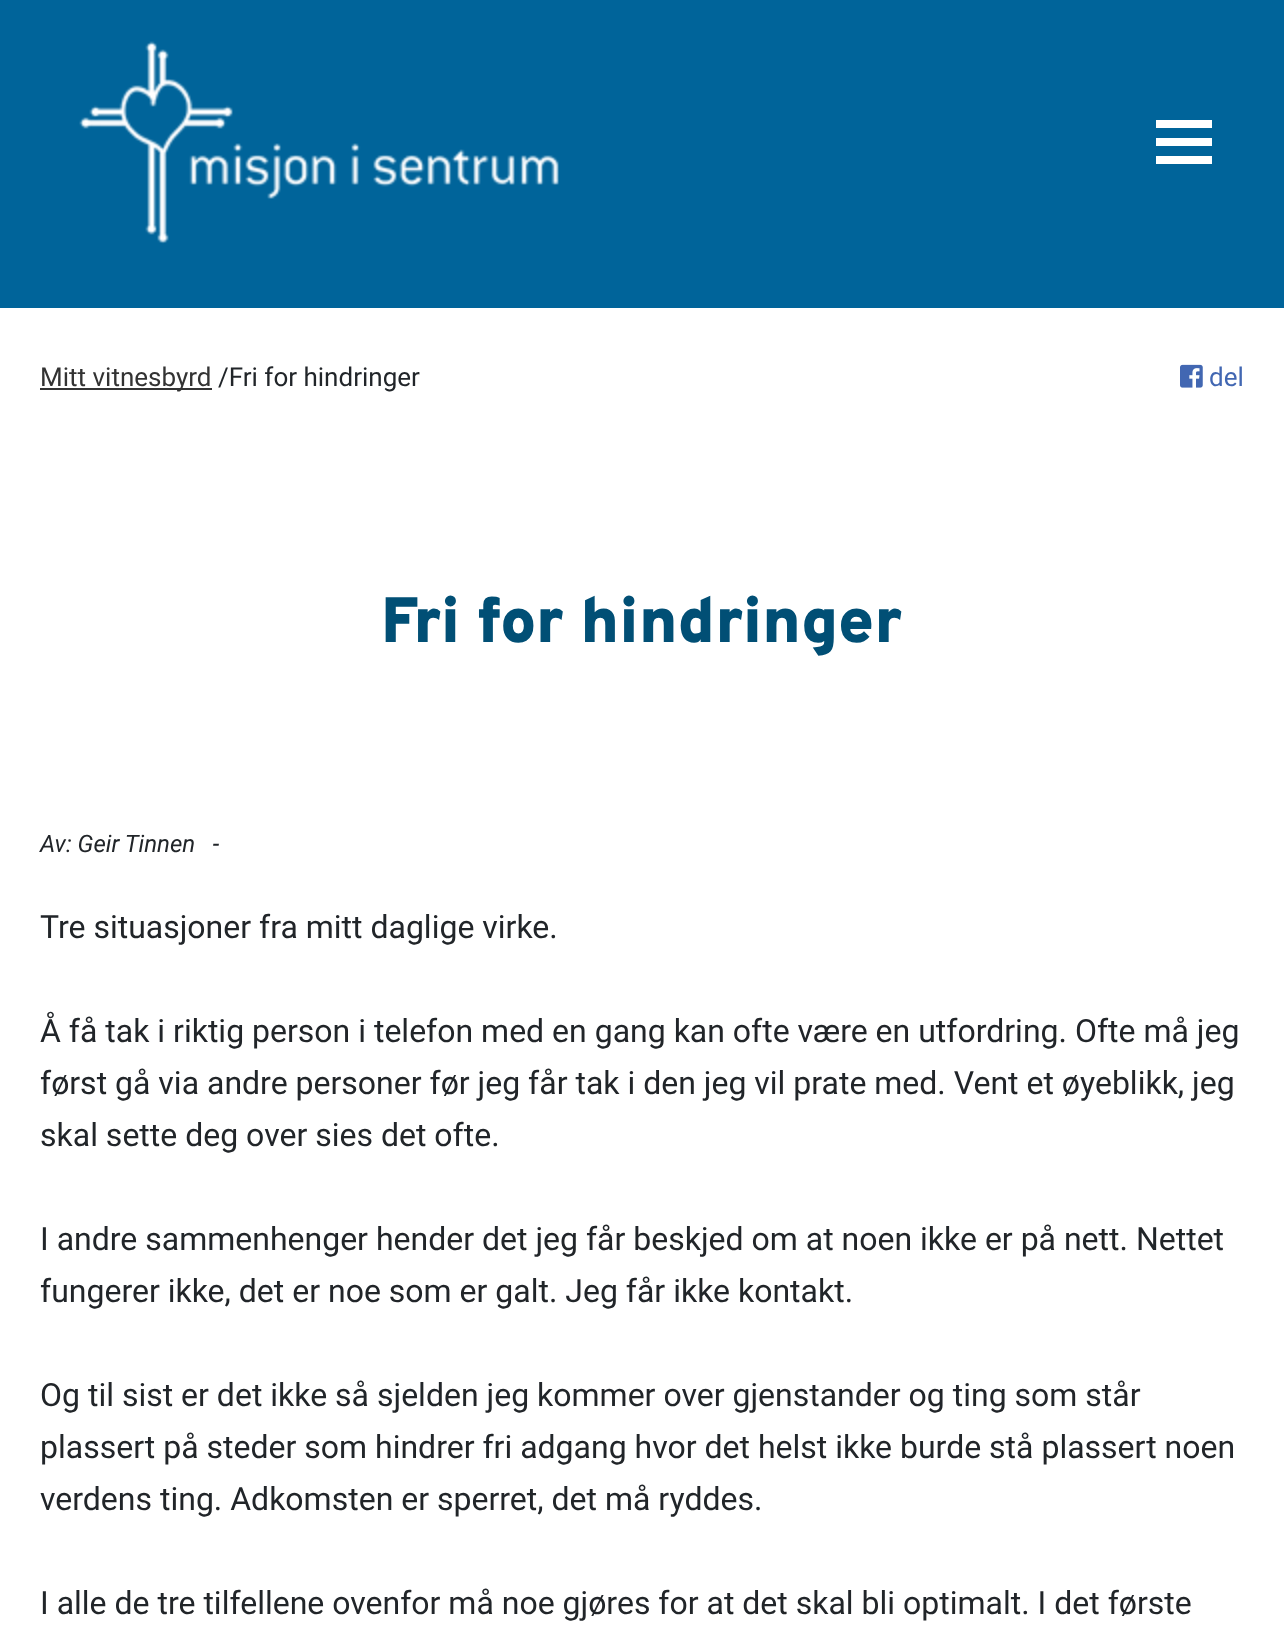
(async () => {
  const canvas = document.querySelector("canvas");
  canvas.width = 1284;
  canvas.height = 1636;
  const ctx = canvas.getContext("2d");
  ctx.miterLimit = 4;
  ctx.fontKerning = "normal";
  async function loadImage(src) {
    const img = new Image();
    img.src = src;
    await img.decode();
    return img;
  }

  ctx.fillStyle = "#ffffff";
  ctx.fillRect(0, 0, 1284, 1636);
  ctx.fillStyle = "#00649a";
  ctx.fillRect(0, 0, 1284, 308);
  ctx.drawImage(await loadImage("img/1.png"), 79, 41, 480, 203);
  for (const [x, y, w, h, color] of [
    [1156, 120, 56, 8, "#ffffff"],
    [1156, 138, 56, 8, "#ffffff"],
    [1156, 156, 56, 8, "#ffffff"],
    [40, 388, 172, 2, "#333333"],
  ]) {
    ctx.fillStyle = color;
    ctx.fillRect(x, y, w, h);
  }
  ctx.drawImage(await loadImage("img/2.png"), 1180, 364, 23, 24);
  ctx.font = "26px Roboto";
  ctx.fillText("Mitt vitnesbyrd", 40, 386);
  ctx.fillStyle = "#212529";
  ctx.fillText("/Fri for hindringer", 218, 386);
  ctx.fillStyle = "#4267b2";
  ctx.fillText("del", 1209, 386);
  ctx.font = "900 64px Overpass";
  ctx.fillStyle = "#014f75";
  ctx.fillText("Fri for hindringer", 381, 642);
  ctx.font = "italic 24px Roboto";
  ctx.fillStyle = "#212529";
  ctx.fillText("Av: Geir Tinnen   -", 40, 852);
  ctx.font = "32px Roboto";
  for (const [text, x, y] of [
    ["Tre situasjoner fra mitt daglige virke.", 40, 938],
    ["Å få tak i riktig person i telefon med en gang kan ofte være en utfordring. Ofte må jeg", 40, 1042],
    ["først gå via andre personer før jeg får tak i den jeg vil prate med. Vent et øyeblikk, jeg", 40, 1094],
    ["skal sette deg over sies det ofte.", 40, 1146],
    ["I andre sammenhenger hender det jeg får beskjed om at noen ikke er på nett. Nettet", 40, 1250],
    ["fungerer ikke, det er noe som er galt. Jeg får ikke kontakt.", 40, 1302],
    ["Og til sist er det ikke så sjelden jeg kommer over gjenstander og ting som står", 40, 1406],
    ["plassert på steder som hindrer fri adgang hvor det helst ikke burde stå plassert noen", 40, 1458],
    ["verdens ting. Adkomsten er sperret, det må ryddes.", 40, 1510],
    ["I alle de tre tilfellene ovenfor må noe gjøres for at det skal bli optimalt. I det første", 40, 1614],
  ]) {
    ctx.fillText(text, x, y);
  }
})();
